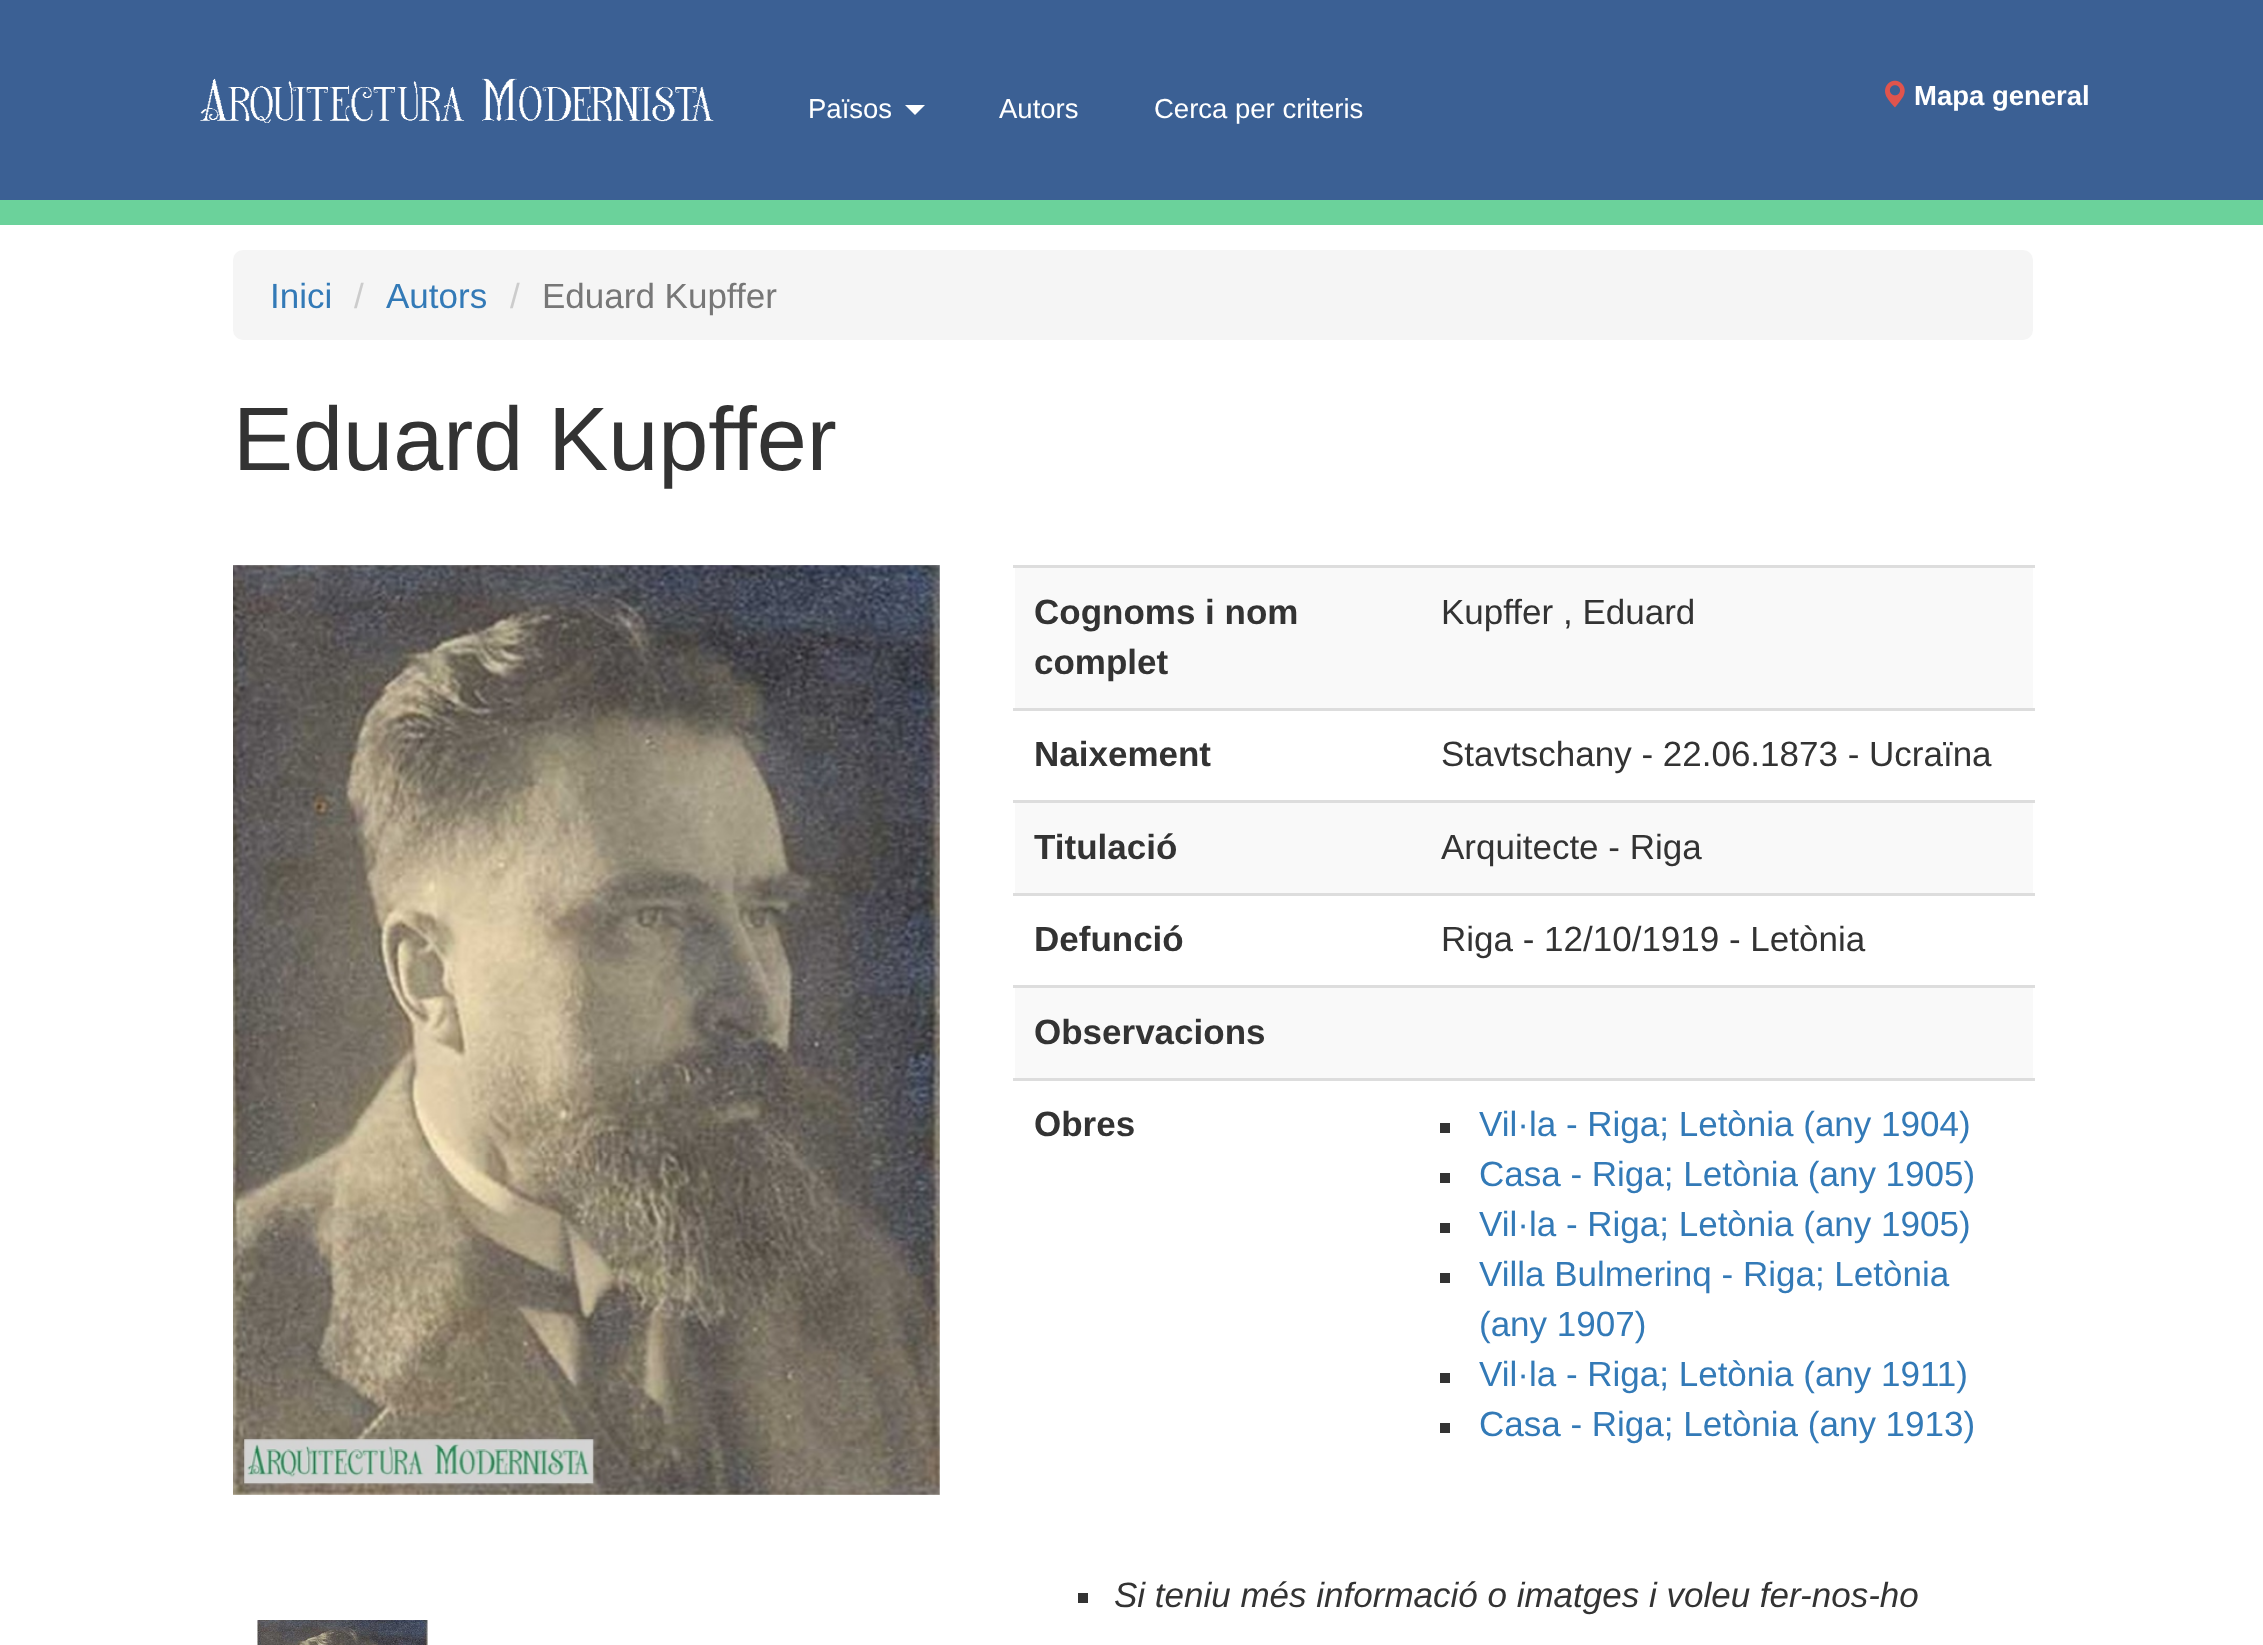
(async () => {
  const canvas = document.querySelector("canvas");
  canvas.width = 2263;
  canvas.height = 1645;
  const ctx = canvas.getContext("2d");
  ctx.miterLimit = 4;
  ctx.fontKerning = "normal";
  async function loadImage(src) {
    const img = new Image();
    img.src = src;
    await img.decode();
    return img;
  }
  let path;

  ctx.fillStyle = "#ffffff";
  ctx.fillRect(0, 0, 2263, 1645);
  ctx.fillStyle = "#3b6094";
  ctx.fillRect(0, 0, 2263, 200);
  ctx.fillStyle = "#6bd29b";
  ctx.fillRect(0, 200, 2263, 25);
  ctx.drawImage(await loadImage("img/1.png"), 200, 78, 514, 45);
  ctx.fillStyle = "#ffffff";
  path = new Path2D("M905 105H925L915 115Z");
  ctx.fill(path);
  ctx.drawImage(await loadImage("img/2.png"), 1885, 80, 20, 28);
  ctx.fillStyle = "#f5f5f5";
  ctx.beginPath();
  ctx.roundRect(233, 250, 1800, 90, 10);
  ctx.fill();
  ctx.drawImage(await loadImage("img/3.png"), 233, 565, 707, 930);
  ctx.drawImage(await loadImage("img/4.png"), 257, 1620, 171, 25);
  for (const [x, y, w, h, color] of [
    [1015, 568, 1018, 140, "#f9f9f9"],
    [1013, 565, 1022, 3, "#dddddd"],
    [1013, 708, 1022, 3, "#dddddd"],
    [1015, 803, 1018, 90, "#f9f9f9"],
    [1013, 800, 1022, 3, "#dddddd"],
    [1013, 893, 1022, 3, "#dddddd"],
    [1015, 988, 1018, 90, "#f9f9f9"],
    [1013, 985, 1022, 3, "#dddddd"],
    [1013, 1078, 1022, 3, "#dddddd"],
    [1440, 1123, 10, 10, "#333333"],
    [1440, 1173, 10, 10, "#333333"],
    [1440, 1223, 10, 10, "#333333"],
    [1440, 1273, 10, 10, "#333333"],
    [1440, 1373, 10, 10, "#333333"],
    [1440, 1423, 10, 10, "#333333"],
    [1078, 1593, 10, 10, "#333333"],
  ]) {
    ctx.fillStyle = color;
    ctx.fillRect(x, y, w, h);
  }
  ctx.font = "27.5px Liberation Sans";
  ctx.fillStyle = "#ffffff";
  for (const [text, x, y] of [
    ["Països", 808, 118],
    ["Autors", 999, 118],
    ["Cerca per criteris", 1154, 118],
  ]) {
    ctx.fillText(text, x, y);
  }
  ctx.font = "bold 27.5px Liberation Sans";
  ctx.fillText("Mapa general", 1914, 105);
  ctx.font = "35px Liberation Sans";
  ctx.fillStyle = "#337ab7";
  ctx.fillText("Inici", 270, 308);
  ctx.fillStyle = "#cccccc";
  ctx.fillText("/", 354, 308);
  ctx.fillStyle = "#337ab7";
  ctx.fillText("Autors", 386, 308);
  ctx.fillStyle = "#cccccc";
  ctx.fillText("/", 510, 308);
  ctx.fillStyle = "#777777";
  ctx.fillText("Eduard Kupffer", 542, 308);
  ctx.font = "90px Liberation Sans";
  ctx.fillStyle = "#333333";
  ctx.fillText("Eduard Kupffer", 233, 470);
  ctx.font = "bold 35px Liberation Sans";
  ctx.fillText("Cognoms i nom", 1034, 624);
  ctx.fillText("complet", 1034, 674);
  ctx.font = "35px Liberation Sans";
  ctx.fillText("Kupffer , Eduard", 1441, 624);
  ctx.font = "bold 35px Liberation Sans";
  ctx.fillText("Naixement", 1034, 766);
  ctx.font = "35px Liberation Sans";
  ctx.fillText("Stavtschany - 22.06.1873 - Ucraïna", 1441, 766);
  ctx.font = "bold 35px Liberation Sans";
  ctx.fillText("Titulació", 1034, 859);
  ctx.font = "35px Liberation Sans";
  ctx.fillText("Arquitecte - Riga", 1441, 859);
  ctx.font = "bold 35px Liberation Sans";
  ctx.fillText("Defunció", 1034, 951);
  ctx.font = "35px Liberation Sans";
  ctx.fillText("Riga - 12/10/1919 - Letònia", 1441, 951);
  ctx.font = "bold 35px Liberation Sans";
  ctx.fillText("Observacions", 1034, 1044);
  ctx.fillText("Obres", 1034, 1136);
  ctx.font = "35px Liberation Sans";
  ctx.fillStyle = "#337ab7";
  for (const [text, x, y] of [
    ["Vil·la - Riga; Letònia (any 1904)", 1479, 1136],
    ["Casa - Riga; Letònia (any 1905)", 1479, 1186],
    ["Vil·la - Riga; Letònia (any 1905)", 1479, 1236],
    ["Villa Bulmerinq - Riga; Letònia", 1479, 1286],
    ["(any 1907)", 1479, 1336],
    ["Vil·la - Riga; Letònia (any 1911)", 1479, 1386],
    ["Casa - Riga; Letònia (any 1913)", 1479, 1436],
  ]) {
    ctx.fillText(text, x, y);
  }
  ctx.font = "italic 35px Liberation Sans";
  ctx.fillStyle = "#333333";
  ctx.fillText("Si teniu més informació o imatges i voleu fer-nos-ho", 1114, 1607);
})();
